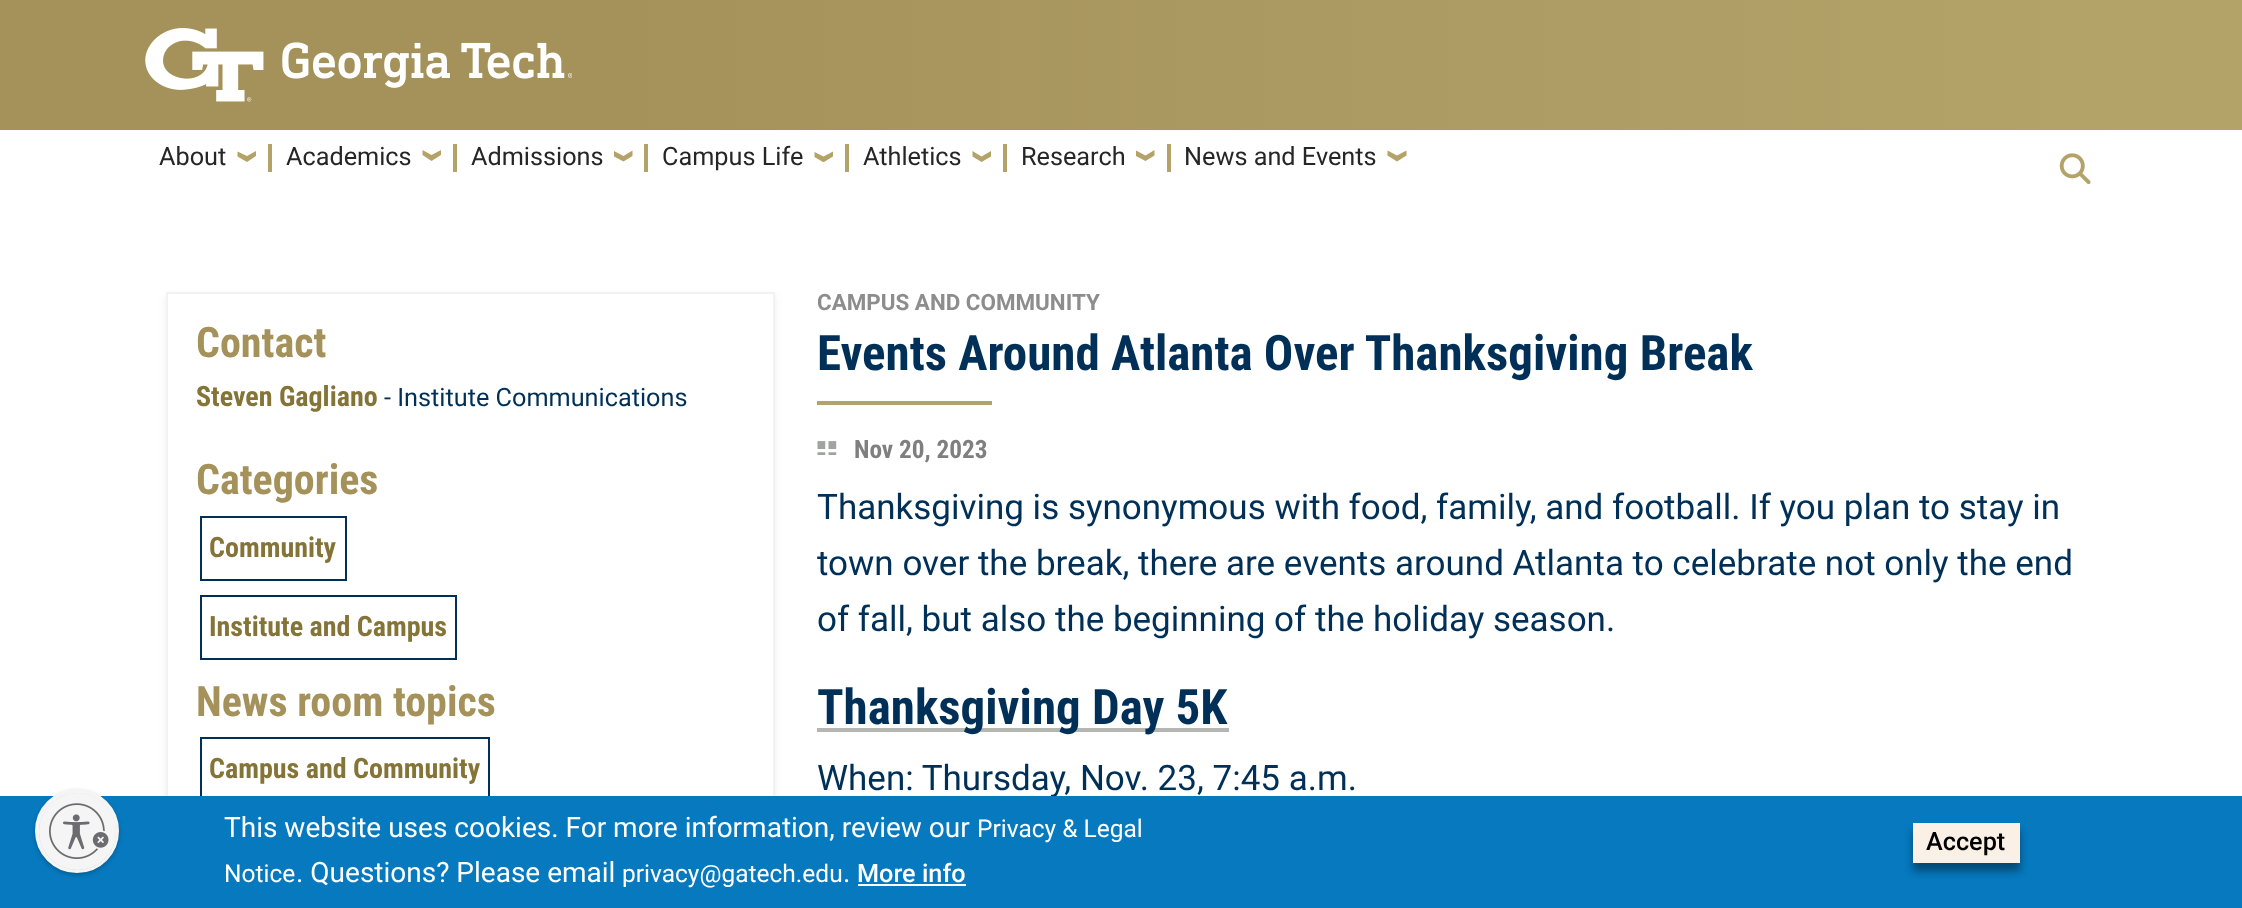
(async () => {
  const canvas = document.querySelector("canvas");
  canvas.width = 2242;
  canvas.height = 908;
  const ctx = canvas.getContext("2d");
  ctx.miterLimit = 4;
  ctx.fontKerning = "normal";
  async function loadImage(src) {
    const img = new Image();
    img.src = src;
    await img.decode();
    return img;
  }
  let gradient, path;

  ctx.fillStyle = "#ffffff";
  ctx.fillRect(0, 0, 2242, 908);
  ctx.fillStyle = "#a4925a";
  ctx.fillRect(0, 0, 623, 130);
  ctx.fillStyle = "#b3a369";
  ctx.fillRect(2119, 0, 123, 130);
  ctx.drawImage(await loadImage("img/1.png"), 145, 28, 427, 74);
  gradient = ctx.createLinearGradient(623, 65, 2119, 65);
  gradient.addColorStop(0, "#a4925a");
  gradient.addColorStop(1, "#b3a369");
  ctx.fillStyle = gradient;
  ctx.fillRect(623, 0, 1496, 130);
  ctx.fillStyle = "#b3a369";
  ctx.fillRect(268, 144, 4, 28);
  path = new Path2D("M256 156V151L247 156L237.5 151.5V156.5L247 162Z");
  ctx.fill(path);
  ctx.fillRect(453, 144, 4, 28);
  path = new Path2D("M441 155V150L431.5 155L422.5 150V155L431.5 161Z");
  ctx.fill(path);
  ctx.fillRect(644, 144, 4, 28);
  path = new Path2D("M632.5 156V150.5L623.5 156L614 151V156.5L623.5 161.5Z");
  ctx.fill(path);
  ctx.fillRect(845, 144, 4, 28);
  path = new Path2D("M833 156.5V151.5L823.5 156.5L814.5 152V157L823 162H824Z");
  ctx.fill(path);
  ctx.fillRect(1003, 144, 4, 28);
  path = new Path2D("M991 156.5V151L981.5 156.5L972.5 151V156.5L981.5 162Z");
  ctx.fill(path);
  ctx.fillRect(1167, 144, 4, 28);
  path = new Path2D("M1154.5 155.5V150L1145.5 155.5L1136 150.5V156L1145.5 161Z");
  ctx.fill(path);
  path = new Path2D("M1406.5 155.5V150.5L1397 155.5L1387.5 150.5V155.5L1397 161.5Z");
  ctx.fill(path);
  ctx.drawImage(await loadImage("img/2.png"), 2059, 153, 32, 32);
  ctx.fillStyle = "rgba(0, 0, 0, 0.07)";
  ctx.filter = "blur(3.5px)";
  ctx.beginPath();
  ctx.rect(166, 296, 609, 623);
  ctx.fill();
  ctx.filter = "none";
  ctx.fillStyle = "#ffffff";
  ctx.fillRect(168, 294, 605, 502);
  ctx.strokeStyle = "#f2f3f1";
  ctx.lineWidth = 2;
  ctx.strokeRect(167, 293, 607, 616);
  ctx.strokeStyle = "#003057";
  ctx.strokeRect(201, 517, 145, 63);
  ctx.strokeRect(201, 596, 255, 63);
  ctx.strokeRect(201, 738, 288, 63);
  ctx.fillStyle = "#b3a369";
  ctx.fillRect(817, 401, 175, 4);
  ctx.drawImage(await loadImage("img/3.png"), 817, 441, 20, 14);
  ctx.fillStyle = "#b4b6b1";
  ctx.fillRect(817, 728, 412, 4);
  ctx.font = "25.25px Roboto";
  ctx.fillStyle = "#262626";
  for (const [text, x, y] of [
    ["About", 159, 165],
    ["Academics", 286, 165],
    ["Admissions", 471, 165],
    ["Campus Life", 662, 165],
    ["Athletics", 863, 165],
    ["Research", 1021, 165],
    ["News and Events", 1184, 165],
  ]) {
    ctx.fillText(text, x, y);
  }
  ctx.font = "bold 42px Roboto Condensed";
  ctx.fillStyle = "#a4925a";
  ctx.fillText("Contact", 196, 357);
  ctx.font = "bold 28px Roboto Condensed";
  ctx.fillStyle = "#857437";
  ctx.fillText("Steven Gagliano", 196, 406);
  ctx.font = "25.25px Roboto";
  ctx.fillStyle = "#003057";
  ctx.fillText("- Institute Communications", 384, 406);
  ctx.font = "bold 42px Roboto Condensed";
  ctx.fillStyle = "#a4925a";
  ctx.fillText("Categories", 196, 494);
  ctx.font = "bold 28px Roboto Condensed";
  ctx.fillStyle = "#857437";
  ctx.fillText("Community", 209, 557);
  ctx.fillText("Institute and Campus", 209, 636);
  ctx.font = "bold 42px Roboto Condensed";
  ctx.fillStyle = "#a4925a";
  ctx.fillText("News room topics", 196, 716);
  ctx.font = "bold 28px Roboto Condensed";
  ctx.fillStyle = "#857437";
  ctx.fillText("Campus and Community", 209, 778);
  ctx.font = "bold 22.4px Roboto";
  ctx.fillStyle = "#8e8d8d";
  ctx.fillText("CAMPUS AND COMMUNITY", 817, 310);
  ctx.font = "bold 49px Roboto Condensed";
  ctx.fillStyle = "#003057";
  ctx.fillText("Events Around Atlanta Over Thanksgiving Break", 817, 370);
  ctx.font = "bold 25.25px Roboto Condensed";
  ctx.fillStyle = "#7f7f7f";
  ctx.fillText("Nov 20, 2023", 854, 458);
  ctx.font = "35px Roboto";
  ctx.fillStyle = "#003057";
  for (const [text, x, y] of [
    ["Thanksgiving is synonymous with food, family, and football. If you plan to stay in", 817, 519],
    ["town over the break, there are events around Atlanta to celebrate not only the end", 817, 575],
    ["of fall, but also the beginning of the holiday season.", 817, 631],
  ]) {
    ctx.fillText(text, x, y);
  }
  ctx.font = "bold 49px Roboto Condensed";
  ctx.fillText("Thanksgiving Day 5K", 817, 724);
  ctx.font = "35px Roboto";
  ctx.fillText("When: Thursday, Nov. 23, 7:45 a.m.", 817, 790);
  ctx.fillStyle = "#0779bf";
  ctx.fillRect(0, 796, 2242, 112);
  ctx.fillStyle = "rgba(0, 0, 0, 0.24)";
  ctx.filter = "blur(2px)";
  ctx.beginPath();
  ctx.roundRect(35, 791, 84, 84, 42);
  ctx.fill();
  ctx.filter = "none";
  ctx.fillStyle = "#ebebf0";
  ctx.beginPath();
  ctx.arc(77, 831, 40, 0, Math.PI * 2);
  ctx.fill();
  ctx.strokeStyle = "#f5f5f5";
  ctx.lineWidth = 4;
  ctx.stroke();
  ctx.save();
  ctx.beginPath();
  ctx.roundRect(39, 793, 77, 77, 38.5);
  ctx.clip();
  ctx.fillStyle = "rgba(0, 0, 0, 0.24)";
  ctx.filter = "blur(2px)";
  ctx.beginPath();
  ctx.roundRect(39, 795, 77, 77, 38.5);
  ctx.fill();
  ctx.filter = "none";
  ctx.restore();
  ctx.fillStyle = "#f5f5f5";
  ctx.beginPath();
  ctx.arc(77.5, 831.5, 38.5, 0, Math.PI * 2);
  ctx.fill();
  ctx.drawImage(await loadImage("img/4.png"), 49, 803, 60, 56);
  ctx.font = "28px Roboto";
  ctx.fillStyle = "#ffffff";
  ctx.fillText("This website uses cookies. For more information, review our", 224, 837);
  ctx.font = "24.5px Roboto";
  ctx.fillText("Privacy & Legal", 977, 837);
  ctx.fillText("Notice", 224, 882);
  ctx.font = "28px Roboto";
  ctx.fillText(". Questions? Please email", 296, 882);
  ctx.font = "24.5px Roboto";
  ctx.fillText("privacy@gatech.edu", 622, 882);
  ctx.font = "28px Roboto";
  ctx.fillText(".", 843, 882);
  ctx.font = "500 25.25px Roboto";
  ctx.fillText("More info", 857, 882);
  ctx.fillRect(858, 884, 108, 2);
  ctx.fillStyle = "rgba(0, 0, 0, 0.19)";
  ctx.filter = "blur(4.5px)";
  ctx.beginPath();
  ctx.rect(1913, 831, 107, 41);
  ctx.fill();
  ctx.filter = "none";
  ctx.fillStyle = "rgba(0, 0, 0, 0.24)";
  ctx.filter = "blur(3.5px)";
  ctx.beginPath();
  ctx.rect(1913, 830, 107, 40);
  ctx.fill();
  ctx.filter = "none";
  ctx.fillStyle = "#faf0e6";
  ctx.fillRect(1913, 823, 107, 40);
  ctx.fillStyle = "#000000";
  ctx.fillText("Accept", 1926, 850);
})();
